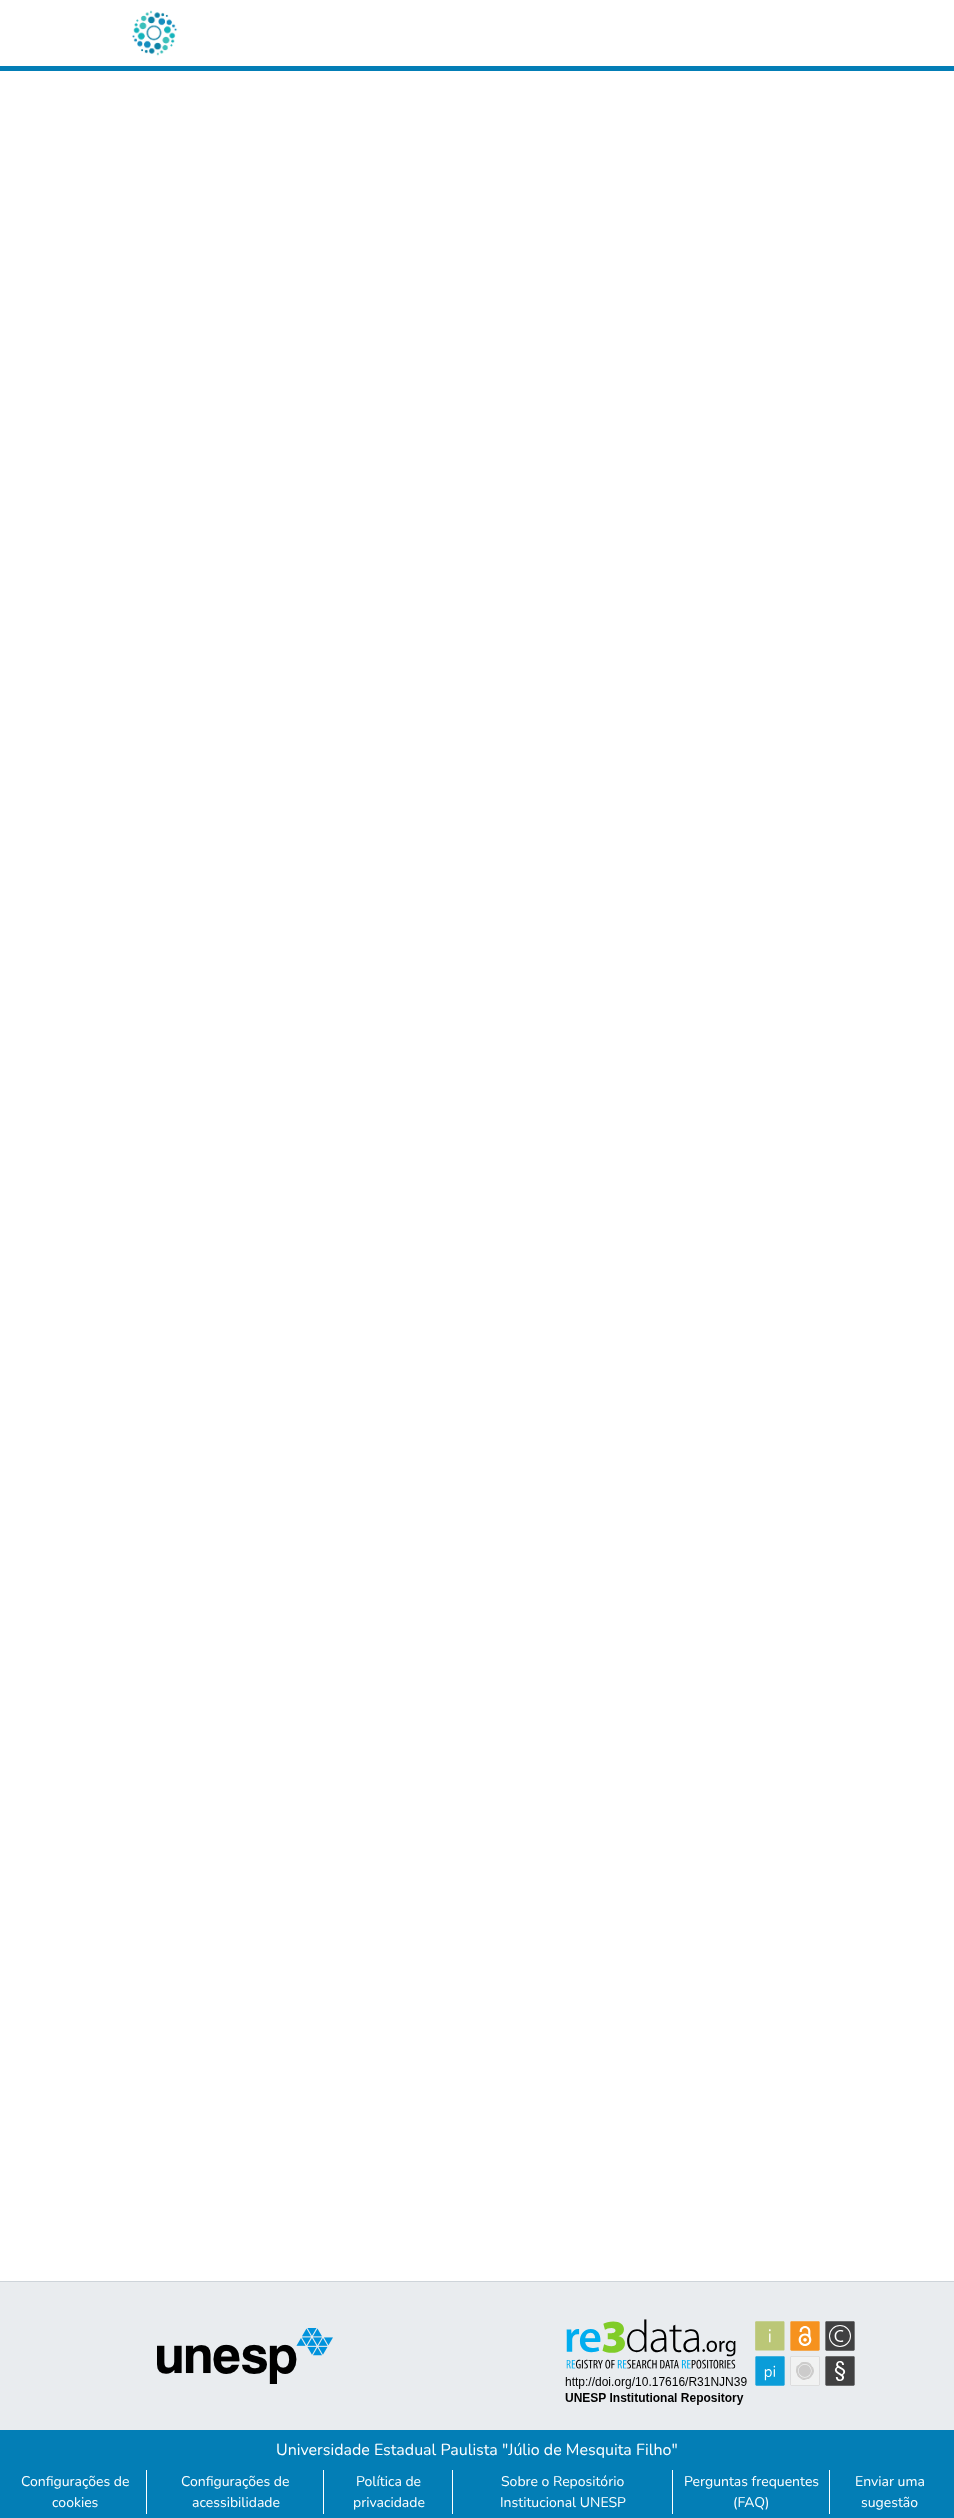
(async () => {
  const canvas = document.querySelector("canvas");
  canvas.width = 954;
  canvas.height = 2518;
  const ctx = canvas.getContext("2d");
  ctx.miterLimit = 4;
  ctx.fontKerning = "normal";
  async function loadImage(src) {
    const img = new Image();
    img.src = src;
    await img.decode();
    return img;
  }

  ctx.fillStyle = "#ffffff";
  ctx.fillRect(0, 0, 954, 2518);
  ctx.fillStyle = "#037eb6";
  ctx.fillRect(0, 66, 954, 5);
  ctx.drawImage(await loadImage("img/1.png"), 132, 10, 46, 46);
  for (const [x, y, w, h, color] of [
    [0, 2430, 954, 88, "#037eb6"],
    [0, 2281, 954, 1, "#ced4da"],
    [0, 2282, 954, 148, "#e9ecef"],
  ]) {
    ctx.fillStyle = color;
    ctx.fillRect(x, y, w, h);
  }
  ctx.drawImage(await loadImage("img/2.png"), 157, 2328, 176, 56);
  ctx.drawImage(await loadImage("img/3.png"), 565, 2319, 290, 86);
  for (const [x, y, w, h, color] of [
    [146, 2470, 1, 44, "#ffffff"],
    [323, 2470, 1, 44, "#ffffff"],
    [452, 2470, 1, 44, "#ffffff"],
    [672, 2470, 1, 44, "#ffffff"],
    [829, 2470, 1, 44, "#ffffff"],
  ]) {
    ctx.fillStyle = color;
    ctx.fillRect(x, y, w, h);
  }
  ctx.font = "16px Nunito";
  ctx.fillText("Universidade Estadual Paulista \"Júlio de Mesquita Filho\"", 276, 2455);
  ctx.font = "14px Nunito";
  for (const [text, x, y] of [
    ["Configurações de", 21, 2486],
    ["cookies", 52, 2507],
    ["Configurações de", 181, 2486],
    ["acessibilidade", 192, 2507],
    ["Política de", 356, 2486],
    ["privacidade", 353, 2507],
    ["Sobre o Repositório", 501, 2486],
    ["Institucional UNESP", 500, 2507],
    ["Perguntas frequentes", 684, 2486],
    ["(FAQ)", 733, 2507],
    ["Enviar uma", 855, 2486],
    ["sugestão", 861, 2507],
  ]) {
    ctx.fillText(text, x, y);
  }
})();
